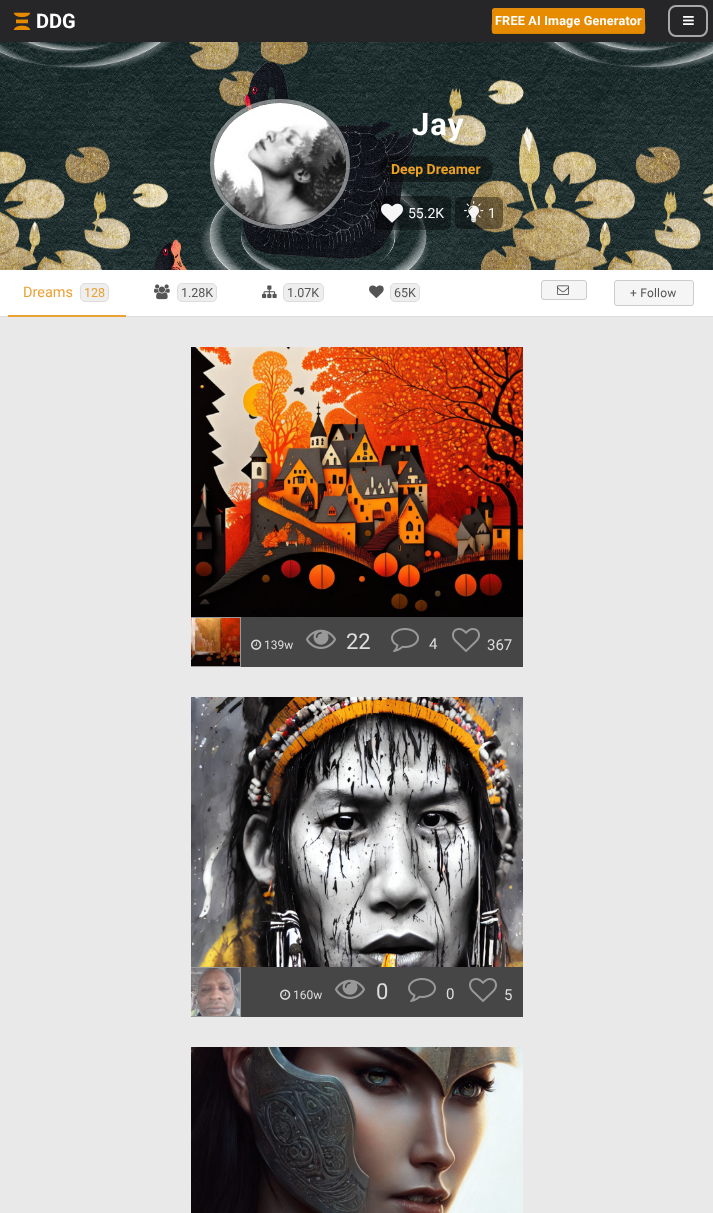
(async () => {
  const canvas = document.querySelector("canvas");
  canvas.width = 713;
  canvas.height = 1213;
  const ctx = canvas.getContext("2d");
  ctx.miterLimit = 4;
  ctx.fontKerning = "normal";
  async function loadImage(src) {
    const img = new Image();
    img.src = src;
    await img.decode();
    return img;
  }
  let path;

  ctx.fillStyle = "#e9e9e9";
  ctx.fillRect(0, 0, 713, 1213);
  ctx.fillStyle = "#262628";
  ctx.fillRect(0, 0, 713, 42);
  ctx.drawImage(await loadImage("img/1.png"), 13, 12, 18, 18);
  ctx.fillStyle = "#e68a00";
  ctx.beginPath();
  ctx.roundRect(492, 8, 153, 26, 3);
  ctx.fill();
  path = new Path2D("M644 33L642 33.5H495L493 33");
  ctx.strokeStyle = "#d68400";
  ctx.stroke(path);
  path = new Path2D("M493 33C491.5 31 492.5 23.5 492.5 21V14.5C492.5 12.5 492 8.5 495 8.5H642C645 8.5 644.5 12.5 644.5 14.5V21C644.5 23.5 645.5 31 644 33");
  ctx.strokeStyle = "#dd8e11";
  ctx.stroke(path);
  ctx.beginPath();
  ctx.roundRect(669, 6, 38, 30, 7);
  ctx.strokeStyle = "#a8a8a9";
  ctx.lineWidth = 2;
  ctx.stroke();
  ctx.drawImage(await loadImage("img/2.png"), 683, 16, 11, 9);
  ctx.drawImage(await loadImage("img/3.png"), 0, 42, 713, 228);
  path = new Path2D("M280 101C317.5 101 348 129 348 164C348 199 317.5 227 280 227C242.5 227 212 199 212 164C212 129 242.5 101 280 101Z");
  ctx.strokeStyle = "rgba(204, 204, 204, 0.6)";
  ctx.lineWidth = 4;
  ctx.stroke(path);
  ctx.drawImage(await loadImage("img/4.png"), 214, 103, 132, 122);
  ctx.fillStyle = "rgba(0, 0, 0, 0.4)";
  ctx.beginPath();
  ctx.roundRect(379, 156, 114, 26, 13);
  ctx.fill();
  ctx.beginPath();
  ctx.roundRect(374, 196, 77, 34, 6);
  ctx.fill();
  ctx.drawImage(await loadImage("img/5.png"), 381, 203, 22, 20);
  ctx.beginPath();
  ctx.roundRect(455, 197, 48, 32, 6);
  ctx.fill();
  ctx.drawImage(await loadImage("img/6.png"), 464, 200, 20, 23);
  for (const [x, y, w, h, color] of [
    [0, 270, 713, 46, "#ffffff"],
    [0, 316, 713, 1, "#dcdcdc"],
    [8, 315, 118, 2, "#eba133"],
  ]) {
    ctx.fillStyle = color;
    ctx.fillRect(x, y, w, h);
  }
  ctx.fillStyle = "#eeeeee";
  ctx.beginPath();
  ctx.roundRect(80.5, 283.5, 28, 18, 4.5);
  ctx.fill();
  ctx.strokeStyle = "#dddddd";
  ctx.lineWidth = 1;
  ctx.stroke();
  ctx.drawImage(await loadImage("img/7.png"), 154, 284, 16, 16);
  ctx.beginPath();
  ctx.roundRect(177.5, 283.5, 39, 18, 4.5);
  ctx.fill();
  ctx.stroke();
  ctx.drawImage(await loadImage("img/8.png"), 262, 285, 15, 14);
  ctx.beginPath();
  ctx.roundRect(283.5, 283.5, 40, 18, 4.5);
  ctx.fill();
  ctx.stroke();
  ctx.drawImage(await loadImage("img/9.png"), 369, 285, 15, 13);
  ctx.beginPath();
  ctx.roundRect(390.5, 283.5, 29, 18, 4.5);
  ctx.fill();
  ctx.stroke();
  ctx.fillStyle = "#f5f5f5";
  ctx.beginPath();
  ctx.roundRect(541.5, 280.5, 45, 19, 2.5);
  ctx.fill();
  ctx.strokeStyle = "#cccccc";
  ctx.stroke();
  ctx.drawImage(await loadImage("img/10.png"), 557, 285, 12, 10);
  ctx.beginPath();
  ctx.roundRect(614.5, 280.5, 79, 25, 2.5);
  ctx.fill();
  ctx.stroke();
  ctx.drawImage(await loadImage("img/11.png"), 191, 347, 332, 270);
  for (const [x, y, w, h, color] of [
    [241, 617, 282, 50, "#464646"],
    [191, 617, 50, 1, "#999999"],
    [240, 617, 1, 50, "#999999"],
    [191, 666, 50, 1, "#999999"],
  ]) {
    ctx.fillStyle = color;
    ctx.fillRect(x, y, w, h);
  }
  ctx.drawImage(await loadImage("img/12.png"), 191, 618, 49, 48);
  ctx.drawImage(await loadImage("img/13.png"), 251, 639, 11, 11);
  ctx.drawImage(await loadImage("img/14.png"), 306, 629, 30, 20);
  ctx.drawImage(await loadImage("img/15.png"), 391, 628, 28, 24);
  ctx.drawImage(await loadImage("img/16.png"), 452, 628, 28, 24);
  ctx.drawImage(await loadImage("img/17.png"), 191, 697, 332, 270);
  for (const [x, y, w, h, color] of [
    [241, 967, 282, 50, "#464646"],
    [191, 967, 50, 1, "#999999"],
    [240, 967, 1, 50, "#999999"],
    [191, 1016, 50, 1, "#999999"],
  ]) {
    ctx.fillStyle = color;
    ctx.fillRect(x, y, w, h);
  }
  ctx.drawImage(await loadImage("img/18.png"), 191, 968, 49, 48);
  ctx.drawImage(await loadImage("img/13.png"), 280, 989, 11, 11);
  ctx.drawImage(await loadImage("img/14.png"), 335, 979, 30, 20);
  ctx.drawImage(await loadImage("img/15.png"), 408, 978, 28, 24);
  ctx.drawImage(await loadImage("img/16.png"), 469, 978, 28, 24);
  ctx.drawImage(await loadImage("img/19.png"), 191, 1047, 332, 166);
  ctx.font = "bold 20px Roboto";
  ctx.fillStyle = "#ffffff";
  ctx.fillText("DDG", 36, 28);
  ctx.letterSpacing = "0.2px";
  ctx.font = "bold 12.6px Roboto";
  ctx.fillText("FREE AI Image Generator", 495, 25);
  ctx.letterSpacing = "1px";
  ctx.font = "bold 31px Roboto";
  ctx.fillText("Jay", 412, 135);
  ctx.letterSpacing = "0px";
  ctx.font = "bold 14px Roboto";
  ctx.fillStyle = "#eba123";
  ctx.fillText("Deep Dreamer", 391, 174);
  ctx.font = "14px Roboto";
  ctx.fillStyle = "#f6f6f6";
  ctx.fillText("55.2K", 408, 218);
  ctx.fillText("1", 488, 218);
  ctx.font = "14.5px Roboto";
  ctx.fillStyle = "#eba133";
  ctx.fillText("Dreams", 23, 297);
  ctx.font = "12.5px Roboto";
  ctx.fillText("128", 84, 297);
  ctx.fillStyle = "#555555";
  for (const [text, x, y] of [
    ["1.28K", 181, 297],
    ["1.07K", 287, 297],
    ["65K", 394, 297],
  ]) {
    ctx.fillText(text, x, y);
  }
  ctx.letterSpacing = "0.2px";
  ctx.font = "12px Roboto";
  ctx.fillText("+ Follow", 630, 297);
  ctx.letterSpacing = "0px";
  ctx.fillStyle = "#dddddd";
  ctx.fillText("139w", 264, 649);
  ctx.font = "22px Roboto";
  ctx.fillText("22", 346, 649);
  ctx.font = "15px Roboto";
  ctx.fillText("4", 429, 649);
  ctx.fillText("367", 487, 650);
  ctx.font = "12px Roboto";
  ctx.fillText("160w", 293, 999);
  ctx.font = "22px Roboto";
  ctx.fillText("0", 376, 999);
  ctx.font = "15px Roboto";
  ctx.fillText("0", 446, 999);
  ctx.fillText("5", 504, 1000);
})();
